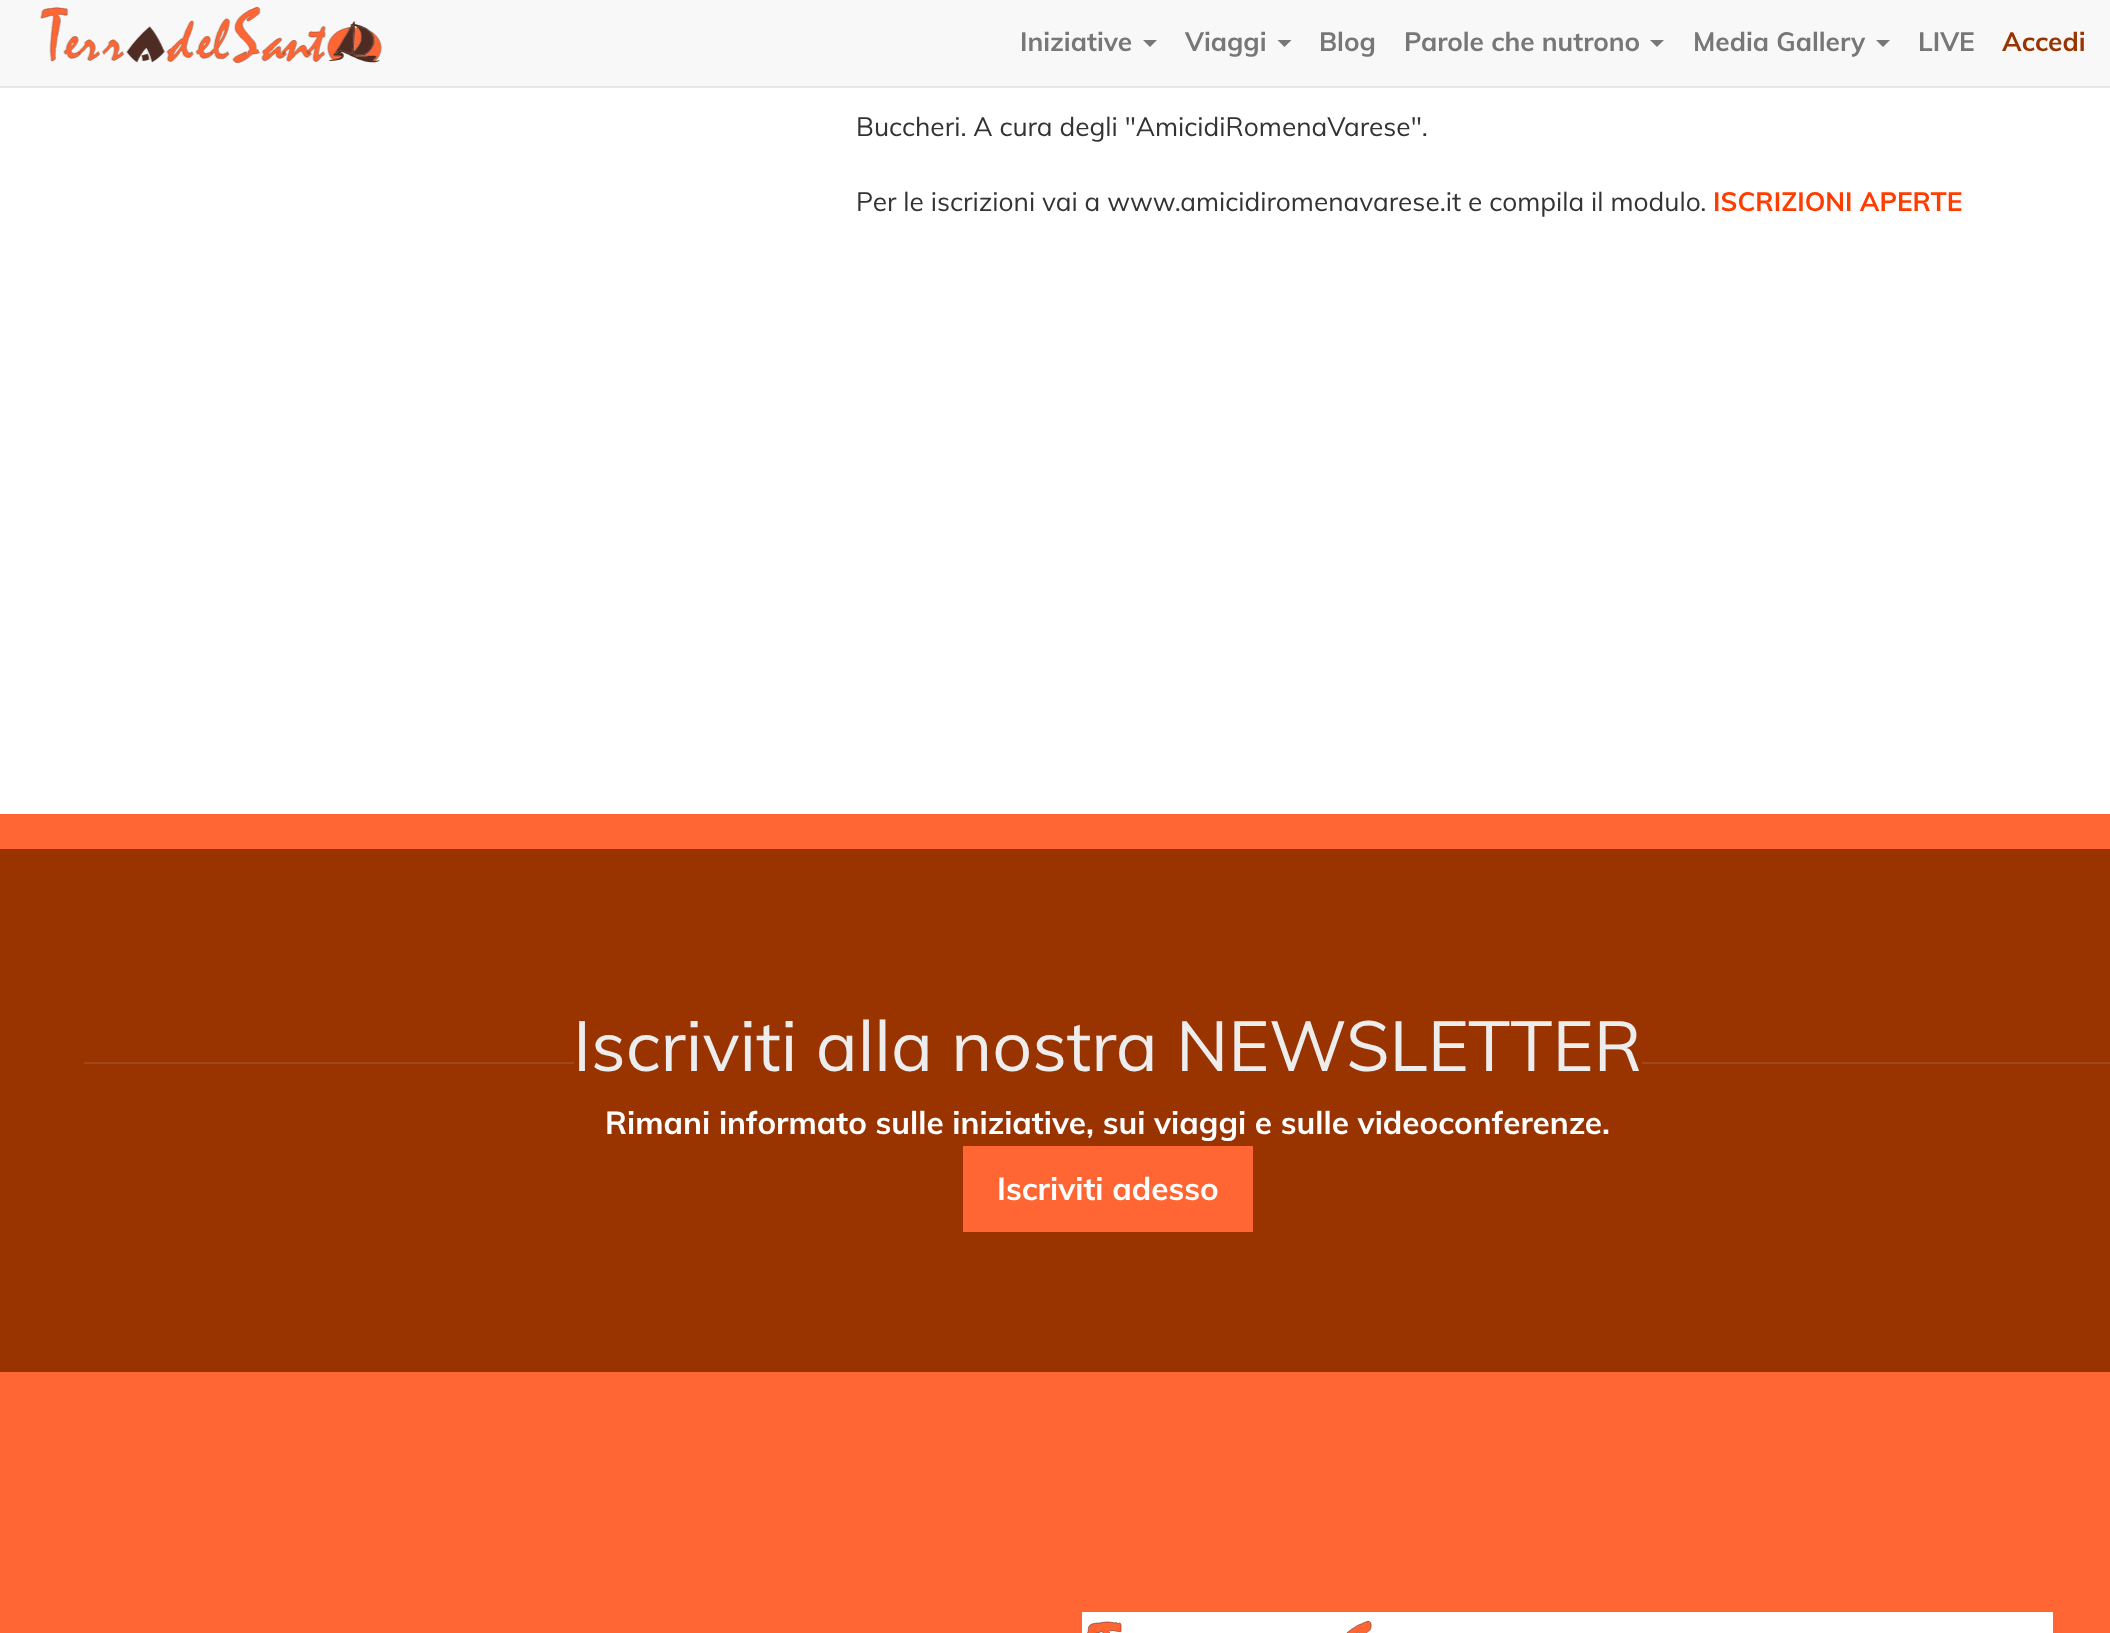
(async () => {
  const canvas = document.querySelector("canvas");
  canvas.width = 2110;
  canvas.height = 1633;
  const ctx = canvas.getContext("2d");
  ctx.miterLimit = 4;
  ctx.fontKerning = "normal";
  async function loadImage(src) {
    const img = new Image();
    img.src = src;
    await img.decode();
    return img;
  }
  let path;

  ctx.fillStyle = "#ffffff";
  ctx.fillRect(0, 0, 2110, 1633);
  ctx.fillStyle = "#f8f8f8";
  ctx.fillRect(0, 0, 2110, 86);
  ctx.fillStyle = "#e7e7e7";
  ctx.fillRect(0, 86, 2110, 2);
  ctx.drawImage(await loadImage("img/1.png"), 40, 6, 342, 58);
  ctx.fillStyle = "#777777";
  path = new Path2D("M1143 40H1157L1150 47Z");
  ctx.fill(path);
  path = new Path2D("M1277.5 40H1291.5L1284.5 47Z");
  ctx.fill(path);
  path = new Path2D("M1650 40H1664L1657 47Z");
  ctx.fill(path);
  path = new Path2D("M1876 40H1890L1883 47Z");
  ctx.fill(path);
  for (const [x, y, w, h, color] of [
    [0, 814, 2110, 819, "#ff6633"],
    [0, 849, 2110, 523, "#993300"],
    [84, 1062, 490, 2, "#a3471a"],
    [1642, 1062, 468, 2, "#a3471a"],
    [963, 1146, 290, 86, "#ff6633"],
    [1082, 1612, 971, 21, "#ffffff"],
  ]) {
    ctx.fillStyle = color;
    ctx.fillRect(x, y, w, h);
  }
  ctx.drawImage(await loadImage("img/2.png"), 1087, 1620, 285, 13);
  ctx.font = "bold 26.25px Muli";
  ctx.fillStyle = "#777777";
  for (const [text, x, y] of [
    ["Iniziative", 1020, 51],
    ["Viaggi", 1185, 51],
    ["Blog", 1319, 51],
    ["Parole che nutrono", 1404, 51],
    ["Media Gallery", 1693, 51],
    ["LIVE", 1918, 51],
  ]) {
    ctx.fillText(text, x, y);
  }
  ctx.fillStyle = "#993300";
  ctx.fillText("Accedi", 2002, 51);
  ctx.font = "26.25px Muli";
  ctx.fillStyle = "#333333";
  ctx.fillText("Buccheri. A cura degli \"AmicidiRomenaVarese\".", 856, 136);
  ctx.fillText("Per le iscrizioni vai a www.amicidiromenavarese.it e compila il modulo.", 856, 211);
  ctx.font = "bold 26.25px Muli";
  ctx.fillStyle = "#ff3d00";
  ctx.fillText("ISCRIZIONI APERTE", 1713, 211);
  ctx.font = "70px Muli";
  ctx.fillStyle = "#ededed";
  ctx.fillText("Iscriviti alla nostra NEWSLETTER", 573, 1071);
  ctx.font = "bold 31.5px Muli";
  ctx.fillStyle = "#ffffff";
  ctx.fillText("Rimani informato sulle iniziative, sui viaggi e sulle videoconferenze.", 605, 1134);
  ctx.fillText("Iscriviti adesso", 997, 1200);
})();
